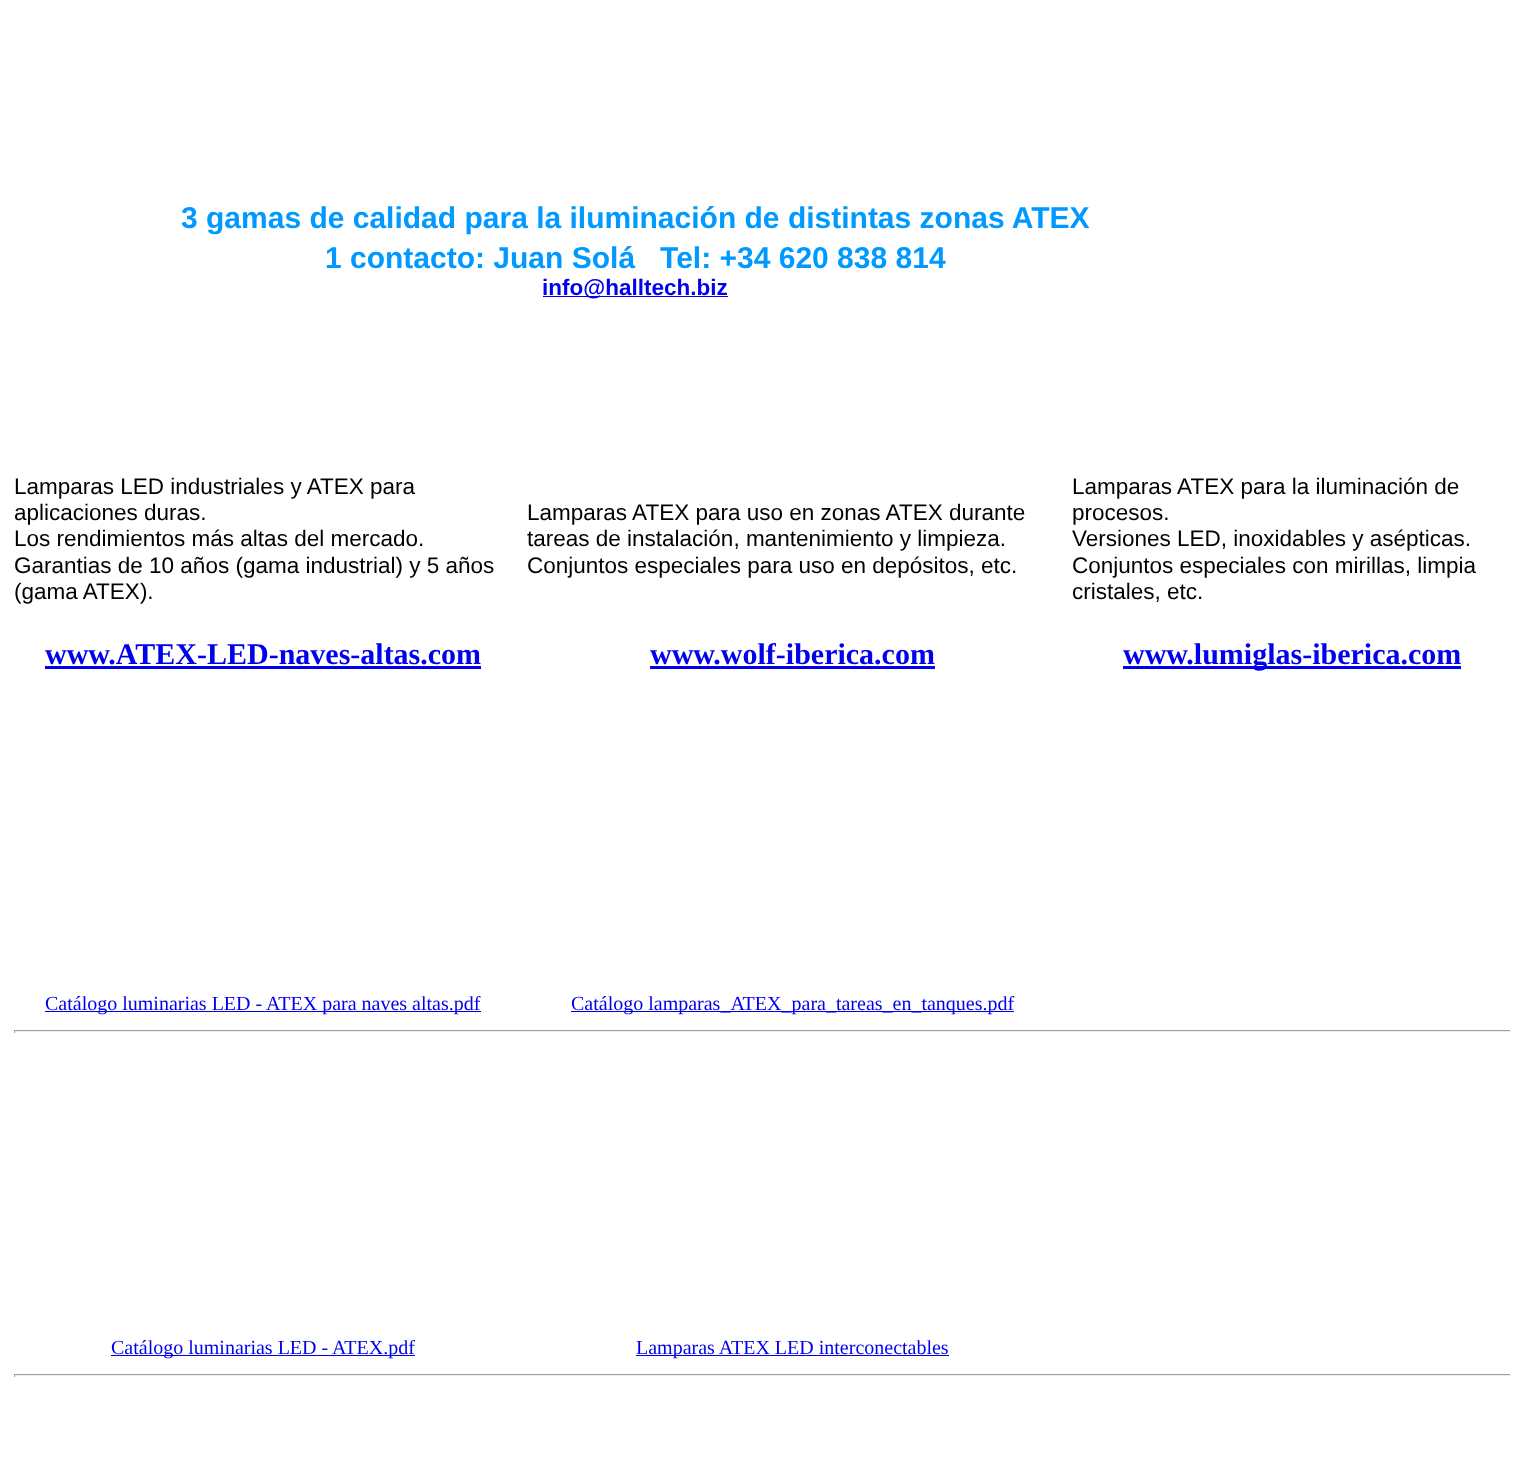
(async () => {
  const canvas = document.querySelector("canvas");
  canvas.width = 1524;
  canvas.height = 1475;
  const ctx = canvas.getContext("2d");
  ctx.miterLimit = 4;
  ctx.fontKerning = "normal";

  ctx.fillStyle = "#ffffff";
  ctx.fillRect(0, 0, 1524, 1475);
  for (const [x, y, w, h, color] of [
    [543, 296, 185, 1, "#0000ee"],
    [45, 666, 436, 3, "#0000ee"],
    [650, 666, 285, 3, "#0000ee"],
    [1123, 666, 338, 3, "#0000ee"],
    [45, 1011, 436, 1, "#0000ee"],
    [571, 1011, 443, 1, "#0000ee"],
    [14, 1030, 1497, 1, "#9f9f9f"],
    [1510, 1030, 1, 3, "#eeeeee"],
    [14, 1031, 1497, 1, "#eeeeee"],
    [14, 1030, 1, 3, "#9f9f9f"],
    [111, 1355, 304, 1, "#0000ee"],
    [636, 1355, 313, 1, "#0000ee"],
    [14, 1374, 1497, 1, "#9f9f9f"],
    [1510, 1374, 1, 3, "#eeeeee"],
    [14, 1375, 1497, 1, "#eeeeee"],
    [14, 1374, 1, 3, "#9f9f9f"],
  ]) {
    ctx.fillStyle = color;
    ctx.fillRect(x, y, w, h);
  }
  ctx.font = "bold 30px Liberation Sans";
  ctx.fillStyle = "#0099ff";
  ctx.fillText("3 gamas de calidad para la iluminación de distintas zonas ATEX", 181, 228);
  ctx.fillText("1 contacto: Juan Solá   Tel: +34 620 838 814", 325, 268);
  ctx.font = "bold 22.5px Liberation Sans";
  ctx.fillStyle = "#0000ee";
  ctx.fillText("info@halltech.biz", 542, 295);
  ctx.font = "22.5px Liberation Sans";
  ctx.fillStyle = "#000000";
  for (const [text, x, y] of [
    ["Lamparas LED industriales y ATEX para", 14, 494],
    ["aplicaciones duras.", 14, 520],
    ["Los rendimientos más altas del mercado.", 14, 546],
    ["Garantias de 10 años (gama industrial) y 5 años", 14, 573],
    ["(gama ATEX).", 14, 599],
    ["Lamparas ATEX para uso en zonas ATEX durante", 527, 520],
    ["tareas de instalación, mantenimiento y limpieza.", 527, 546],
    ["Conjuntos especiales para uso en depósitos, etc.", 527, 573],
    ["Lamparas ATEX para la iluminación de", 1072, 494],
    ["procesos.", 1072, 520],
    ["Versiones LED, inoxidables y asépticas.", 1072, 546],
    ["Conjuntos especiales con mirillas, limpia", 1072, 573],
    ["cristales, etc.", 1072, 599],
  ]) {
    ctx.fillText(text, x, y);
  }
  ctx.font = "bold 30px Liberation Serif";
  ctx.fillStyle = "#0000ee";
  for (const [text, x, y] of [
    ["www.ATEX-LED-naves-altas.com", 45, 664],
    ["www.wolf-iberica.com", 650, 664],
    ["www.lumiglas-iberica.com", 1123, 664],
  ]) {
    ctx.fillText(text, x, y);
  }
  ctx.font = "20px Liberation Serif";
  for (const [text, x, y] of [
    ["Catálogo luminarias LED - ATEX para naves altas.pdf", 45, 1010],
    ["Catálogo lamparas_ATEX_para_tareas_en_tanques.pdf", 571, 1010],
    ["Catálogo luminarias LED - ATEX.pdf", 111, 1354],
    ["Lamparas ATEX LED interconectables", 636, 1354],
  ]) {
    ctx.fillText(text, x, y);
  }
})();
